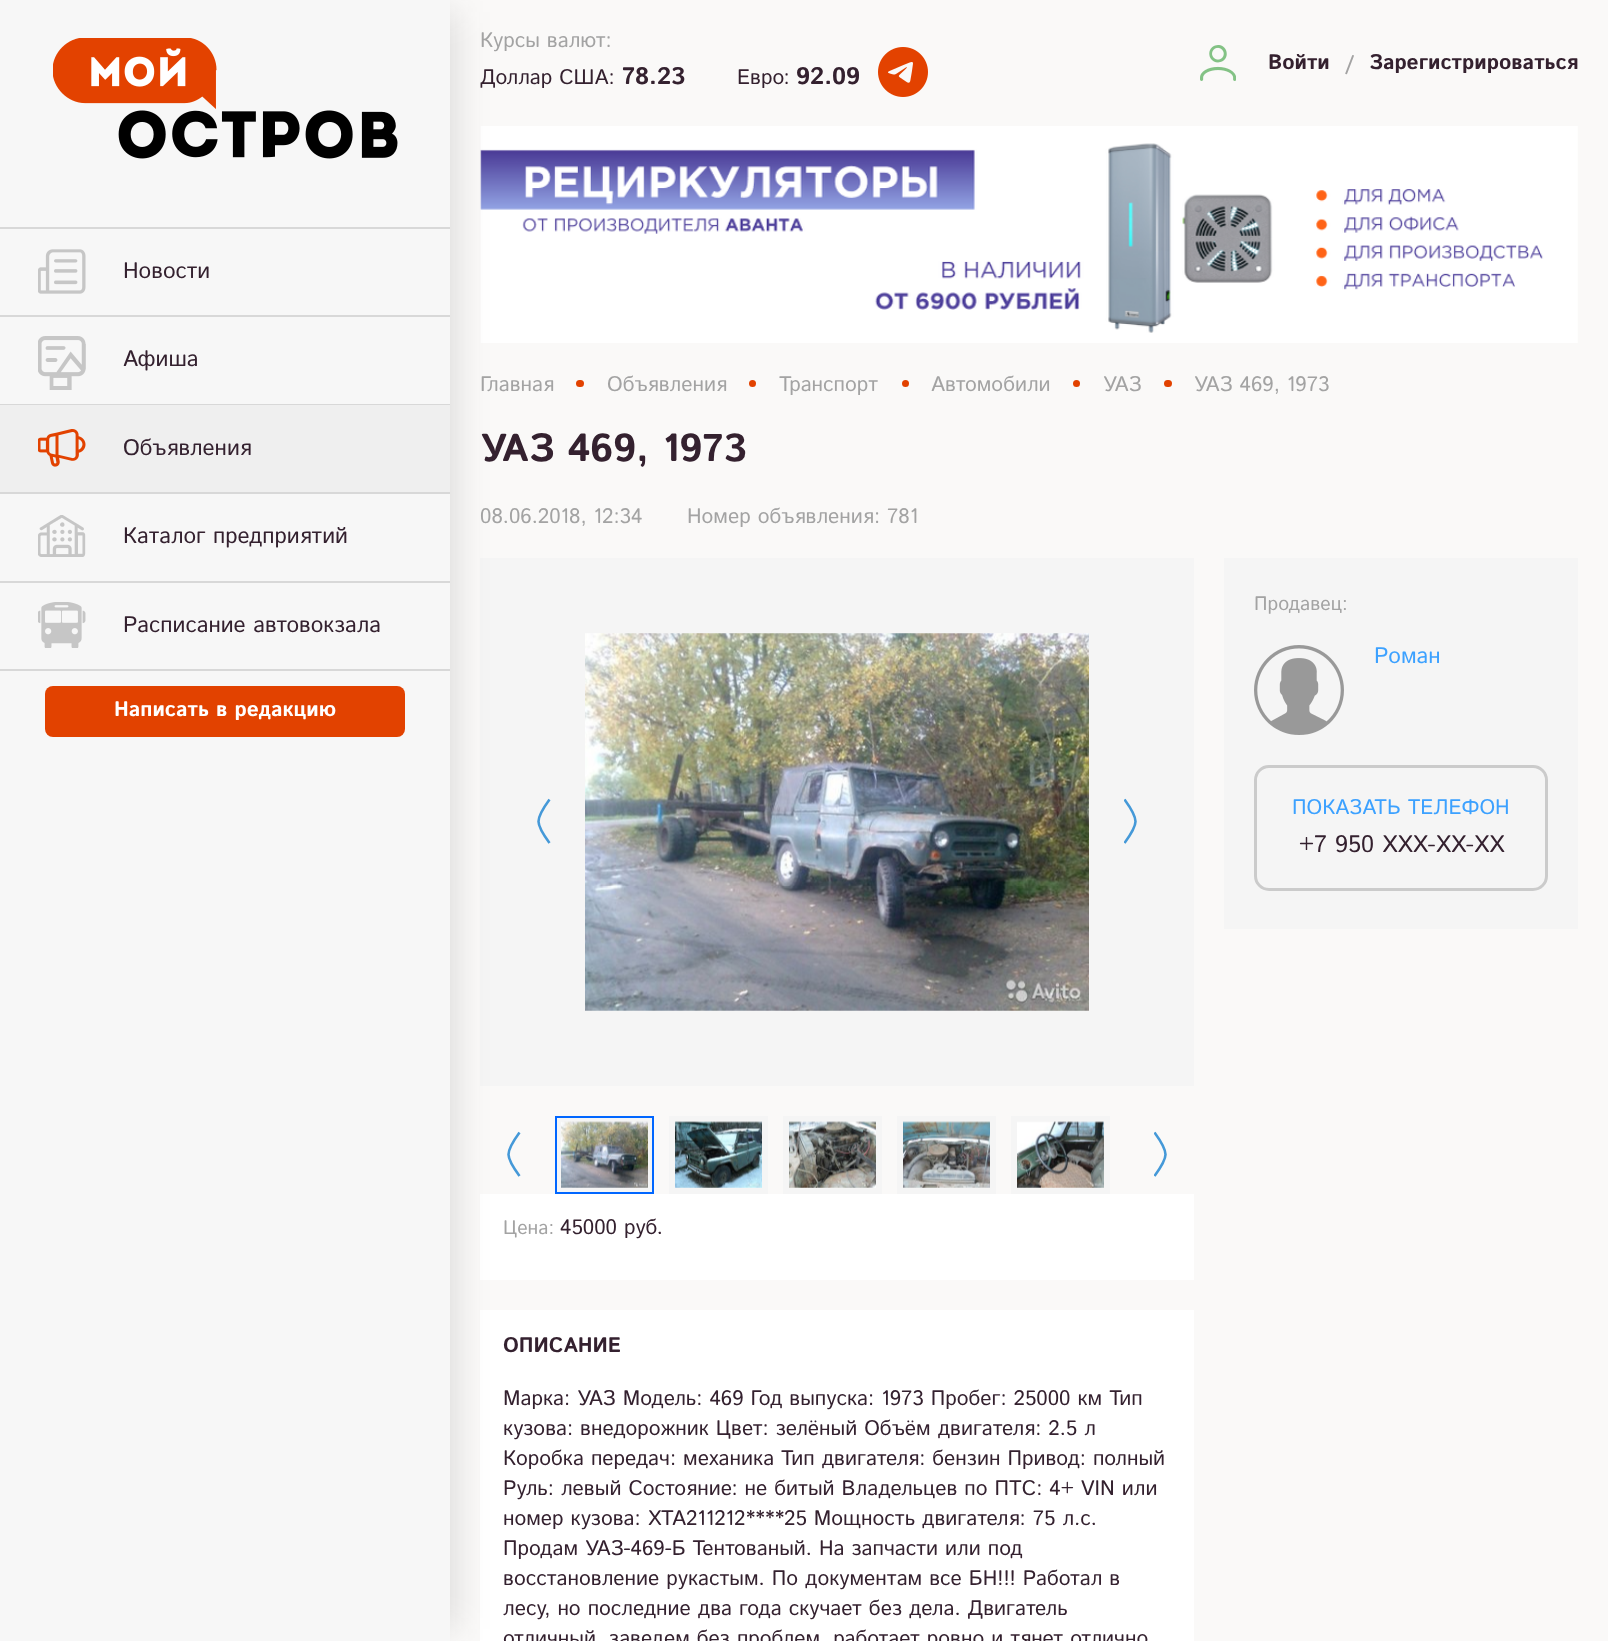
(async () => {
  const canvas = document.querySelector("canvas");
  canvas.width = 1608;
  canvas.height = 1641;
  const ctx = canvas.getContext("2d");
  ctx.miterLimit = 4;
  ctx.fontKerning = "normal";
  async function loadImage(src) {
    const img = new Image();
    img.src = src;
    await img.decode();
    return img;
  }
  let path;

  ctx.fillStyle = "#faf9f8";
  ctx.fillRect(0, 0, 1608, 1641);
  ctx.drawImage(await loadImage("img/9.png"), 480, 126, 1098, 217);
  for (const [x, y, w, h, color] of [
    [480, 558, 714, 528, "#f5f5f5"],
    [480, 1194, 714, 86, "#ffffff"],
    [480, 1310, 714, 331, "#ffffff"],
  ]) {
    ctx.fillStyle = color;
    ctx.fillRect(x, y, w, h);
  }
  ctx.fillStyle = "rgba(50, 50, 50, 0.15)";
  ctx.filter = "blur(17px)";
  ctx.beginPath();
  ctx.rect(29, 12, 426, 1617);
  ctx.fill();
  ctx.filter = "none";
  ctx.fillStyle = "#f7f7f7";
  ctx.fillRect(0, 0, 450, 1641);
  ctx.drawImage(await loadImage("img/1.png"), 53, 38, 345, 121);
  ctx.fillStyle = "#d8d8d8";
  ctx.fillRect(0, 227, 450, 2);
  ctx.drawImage(await loadImage("img/2.png"), 38, 249, 48, 45);
  ctx.fillRect(0, 315, 450, 2);
  ctx.drawImage(await loadImage("img/3.png"), 38, 336, 48, 54);
  ctx.fillRect(0, 404, 450, 1);
  ctx.fillStyle = "#efefef";
  ctx.fillRect(0, 405, 450, 87);
  ctx.drawImage(await loadImage("img/4.png"), 38, 429, 48, 38);
  ctx.fillStyle = "#d8d8d8";
  ctx.fillRect(0, 492, 450, 2);
  ctx.drawImage(await loadImage("img/5.png"), 38, 515, 48, 42);
  ctx.fillRect(0, 581, 450, 2);
  ctx.fillRect(0, 669, 450, 2);
  ctx.drawImage(await loadImage("img/6.png"), 38, 602, 48, 46);
  ctx.fillStyle = "#e24200";
  ctx.beginPath();
  ctx.roundRect(45, 686, 360, 51, 8);
  ctx.fill();
  ctx.drawImage(await loadImage("img/7.png"), 878, 47, 50, 50);
  ctx.drawImage(await loadImage("img/8.png"), 1200, 45, 36, 36);
  ctx.beginPath();
  ctx.roundRect(576, 380, 8, 7, 3.5);
  ctx.fill();
  ctx.beginPath();
  ctx.arc(752.5, 383.5, 3.5, 0, Math.PI * 2);
  ctx.fill();
  ctx.beginPath();
  ctx.arc(905.5, 383.5, 3.5, 0, Math.PI * 2);
  ctx.fill();
  ctx.beginPath();
  ctx.arc(1076.5, 383.5, 3.5, 0, Math.PI * 2);
  ctx.fill();
  ctx.beginPath();
  ctx.roundRect(1164, 380, 8, 7, 3.5);
  ctx.fill();
  ctx.fillStyle = "#f5f5f5";
  ctx.fillRect(1224, 558, 354, 371);
  ctx.drawImage(await loadImage("img/10.png"), 1254, 645, 90, 90);
  ctx.beginPath();
  ctx.roundRect(1255.5, 766.5, 291, 123, 13.5);
  ctx.strokeStyle = "#cbcbcb";
  ctx.lineWidth = 3;
  ctx.stroke();
  path = new Path2D("M549.5 843C549.5 843 538.5 828 538.5 821.5C538.5 814.5 549.5 799.5 549.5 799.5");
  ctx.strokeStyle = "#4599d8";
  ctx.lineWidth = 2.6;
  ctx.stroke(path);
  ctx.drawImage(await loadImage("img/11.png"), 585, 633, 504, 378);
  ctx.save();
  ctx.beginPath();
  ctx.rect(1124, 795, 13, 53);
  ctx.clip();
  path = new Path2D("M1124.5 799.5C1124.5 799.5 1135.5 814.5 1135.5 821.5C1135.5 828 1124.5 843 1124.5 843");
  ctx.stroke(path);
  ctx.restore();
  path = new Path2D("M519.5 1176C519.5 1176 508.5 1161 508.5 1154.5C508.5 1147.5 519.5 1132.5 519.5 1132.5");
  ctx.stroke(path);
  ctx.beginPath();
  ctx.rect(556, 1117, 97, 76);
  ctx.fill();
  ctx.strokeStyle = "#0066ff";
  ctx.lineWidth = 2;
  ctx.stroke();
  ctx.drawImage(await loadImage("img/12.png"), 561, 1121, 87, 67);
  ctx.fillRect(669, 1116, 99, 78);
  ctx.drawImage(await loadImage("img/13.png"), 675, 1121, 87, 67);
  ctx.fillRect(783, 1116, 99, 78);
  ctx.drawImage(await loadImage("img/14.png"), 789, 1121, 87, 67);
  ctx.fillRect(897, 1116, 99, 78);
  ctx.drawImage(await loadImage("img/15.png"), 903, 1121, 87, 67);
  ctx.fillRect(1011, 1116, 99, 78);
  ctx.drawImage(await loadImage("img/16.png"), 1017, 1121, 87, 67);
  ctx.save();
  ctx.beginPath();
  ctx.rect(1154, 1128, 13, 53);
  ctx.clip();
  path = new Path2D("M1154.5 1132.5C1154.5 1132.5 1165.5 1147.5 1165.5 1154.5C1165.5 1161 1154.5 1176 1154.5 1176");
  ctx.strokeStyle = "#4599d8";
  ctx.lineWidth = 2.6;
  ctx.stroke(path);
  ctx.restore();
  ctx.font = "22.5px Istok Web";
  ctx.fillStyle = "#34212f";
  for (const [text, x, y] of [
    ["Новости", 123, 278],
    ["Афиша", 123, 366],
    ["Объявления", 123, 455],
    ["Каталог предприятий", 123, 543],
    ["Расписание автовокзала", 123, 632],
  ]) {
    ctx.fillText(text, x, y);
  }
  ctx.font = "bold 21px Istok Web";
  ctx.fillStyle = "#ffffff";
  ctx.fillText("Написать в редакцию", 114, 716);
  ctx.font = "21px Istok Web";
  ctx.fillStyle = "#a3a3a3";
  ctx.fillText("Курсы валют:", 480, 47);
  ctx.fillStyle = "#34212f";
  ctx.fillText("Доллар США:", 480, 84);
  ctx.font = "bold 24px Istok Web";
  ctx.fillText("78.23", 622, 84);
  ctx.font = "21px Istok Web";
  ctx.fillText("Евро:", 737, 84);
  ctx.font = "bold 24px Istok Web";
  ctx.fillText("92.09", 796, 84);
  ctx.font = "bold 21px Istok Web";
  ctx.fillText("Войти", 1268, 69);
  ctx.fillStyle = "#a3a3a3";
  ctx.fillText("/", 1345, 70);
  ctx.fillStyle = "#34212f";
  ctx.fillText("Зарегистрироваться", 1369, 69);
  ctx.font = "21px Istok Web";
  ctx.fillStyle = "#a3a3a3";
  for (const [text, x, y] of [
    ["Главная", 480, 391],
    ["Объявления", 607, 391],
    ["Транспорт", 779, 391],
    ["Автомобили", 931, 391],
    ["УАЗ", 1103, 391],
    ["УАЗ 469, 1973", 1194, 391],
  ]) {
    ctx.fillText(text, x, y);
  }
  ctx.font = "bold 39px Istok Web";
  ctx.fillStyle = "#34212f";
  ctx.fillText("УАЗ 469, 1973", 480, 461);
  ctx.font = "21px Istok Web";
  ctx.fillStyle = "#a3a3a3";
  ctx.fillText("08.06.2018, 12:34", 480, 523);
  ctx.fillText("Номер объявления: 781", 687, 523);
  ctx.font = "19.5px Istok Web";
  ctx.fillText("Продавец:", 1254, 610);
  ctx.font = "22.5px Istok Web";
  ctx.fillStyle = "#3ca1ff";
  ctx.fillText("Роман", 1374, 663);
  ctx.font = "21px Istok Web";
  ctx.fillText("ПОКАЗАТЬ ТЕЛЕФОН", 1292, 814);
  ctx.font = "24px Istok Web";
  ctx.fillStyle = "#34212f";
  ctx.fillText("+7 950 XXX-XX-XX", 1299, 852);
  ctx.font = "19.5px Istok Web";
  ctx.fillStyle = "#a3a3a3";
  ctx.fillText("Цена:", 503, 1234);
  ctx.font = "21px Istok Web";
  ctx.fillStyle = "#34212f";
  ctx.fillText("45000 руб.", 560, 1234);
  ctx.font = "bold 21px Istok Web";
  ctx.fillText("ОПИСАНИЕ", 503, 1352);
  ctx.font = "21px Istok Web";
  for (const [text, x, y] of [
    ["Марка: УАЗ Модель: 469 Год выпуска: 1973 Пробег: 25000 км Тип", 503, 1405],
    ["кузова: внедорожник Цвет: зелёный Объём двигателя: 2.5 л", 503, 1435],
    ["Коробка передач: механика Тип двигателя: бензин Привод: полный", 503, 1465],
    ["Руль: левый Состояние: не битый Владельцев по ПТС: 4+ VIN или", 503, 1495],
    ["номер кузова: XTA211212****25 Мощность двигателя: 75 л.с.", 503, 1525],
    ["Продам УАЗ-469-Б Тентованый. На запчасти или под", 503, 1555],
    ["восстановление рукастым. По документам все БН!!! Работал в", 503, 1585],
    ["лесу, но последние два года скучает без дела. Двигатель", 503, 1615],
    ["отличный, заведем без проблем, работает ровно и тянет отлично", 503, 1645],
  ]) {
    ctx.fillText(text, x, y);
  }
})();
